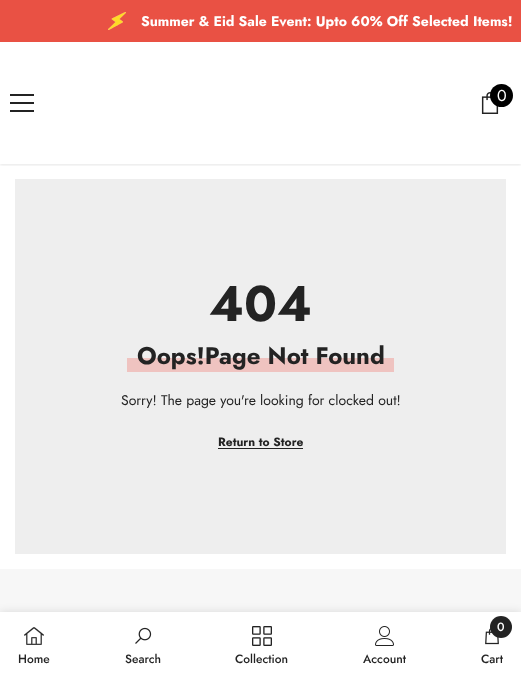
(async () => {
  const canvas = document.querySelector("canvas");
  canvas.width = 521;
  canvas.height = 676;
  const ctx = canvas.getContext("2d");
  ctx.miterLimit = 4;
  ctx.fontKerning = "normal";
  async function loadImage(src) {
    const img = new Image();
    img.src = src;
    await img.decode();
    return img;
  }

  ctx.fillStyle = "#ffffff";
  ctx.fillRect(0, 0, 521, 676);
  ctx.fillStyle = "#e95144";
  ctx.fillRect(0, 0, 521, 42);
  ctx.drawImage(await loadImage("img/1.png"), 108, 12, 18, 18);
  ctx.save();
  ctx.beginPath();
  ctx.rect(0, 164, 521, 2);
  ctx.clip();
  ctx.fillStyle = "rgba(0, 0, 0, 0.1)";
  ctx.filter = "blur(1.5px)";
  ctx.beginPath();
  ctx.rect(0, 43, 521, 122);
  ctx.fill();
  ctx.filter = "none";
  ctx.restore();
  for (const [x, y, w, h, color] of [
    [10, 102, 24, 2, "#232323"],
    [10, 94, 24, 2, "#232323"],
    [10, 110, 24, 2, "#232323"],
  ]) {
    ctx.fillStyle = color;
    ctx.fillRect(x, y, w, h);
  }
  ctx.drawImage(await loadImage("img/2.png"), 481, 92, 18, 22);
  ctx.fillStyle = "#000000";
  ctx.beginPath();
  ctx.arc(501.5, 95.5, 11.5, 0, Math.PI * 2);
  ctx.fill();
  for (const [x, y, w, h, color] of [
    [15, 179, 491, 375, "#eeeeee"],
    [127, 358, 267, 14, "#efc3c0"],
    [218, 448, 85, 1, "#232323"],
    [0, 569, 521, 43, "#f7f7f7"],
  ]) {
    ctx.fillStyle = color;
    ctx.fillRect(x, y, w, h);
  }
  ctx.fillStyle = "rgba(0, 0, 0, 0.12)";
  ctx.filter = "blur(4.5px)";
  ctx.beginPath();
  ctx.rect(0, 612, 521, 64);
  ctx.fill();
  ctx.filter = "none";
  ctx.fillStyle = "#ffffff";
  ctx.fillRect(0, 612, 521, 64);
  ctx.drawImage(await loadImage("img/3.png"), 24, 627, 20, 18);
  ctx.drawImage(await loadImage("img/4.png"), 135, 627, 17, 17);
  ctx.drawImage(await loadImage("img/5.png"), 252, 626, 20, 20);
  ctx.drawImage(await loadImage("img/6.png"), 375, 626, 19, 20);
  ctx.drawImage(await loadImage("img/7.png"), 485, 628, 14, 17);
  ctx.fillStyle = "#232323";
  ctx.beginPath();
  ctx.arc(501, 627, 11, 0, Math.PI * 2);
  ctx.fill();
  ctx.font = "bold 14px Jost";
  ctx.fillStyle = "#ffffff";
  ctx.fillText("Summer & Eid Sale Event: Upto 60% Off Selected Items!", 141, 26);
  ctx.font = "16px Jost";
  ctx.fillText("0", 497, 101);
  ctx.font = "bold 50px Jost";
  ctx.fillStyle = "#232323";
  ctx.fillText("404", 209, 321);
  ctx.font = "bold 24px Jost";
  ctx.fillText("Oops!Page Not Found", 137, 364);
  ctx.font = "14px Jost";
  ctx.fillText("Sorry! The page you're looking for clocked out!", 121, 405);
  ctx.font = "bold 12px Jost";
  ctx.fillText("Return to Store", 218, 446);
  ctx.font = "500 12px Jost";
  for (const [text, x, y] of [
    ["Home", 18, 663],
    ["Search", 125, 663],
    ["Collection", 235, 663],
    ["Account", 363, 663],
  ]) {
    ctx.fillText(text, x, y);
  }
  ctx.fillStyle = "#ffffff";
  ctx.fillText("0", 497, 631);
  ctx.fillStyle = "#232323";
  ctx.fillText("Cart", 481, 663);
})();
